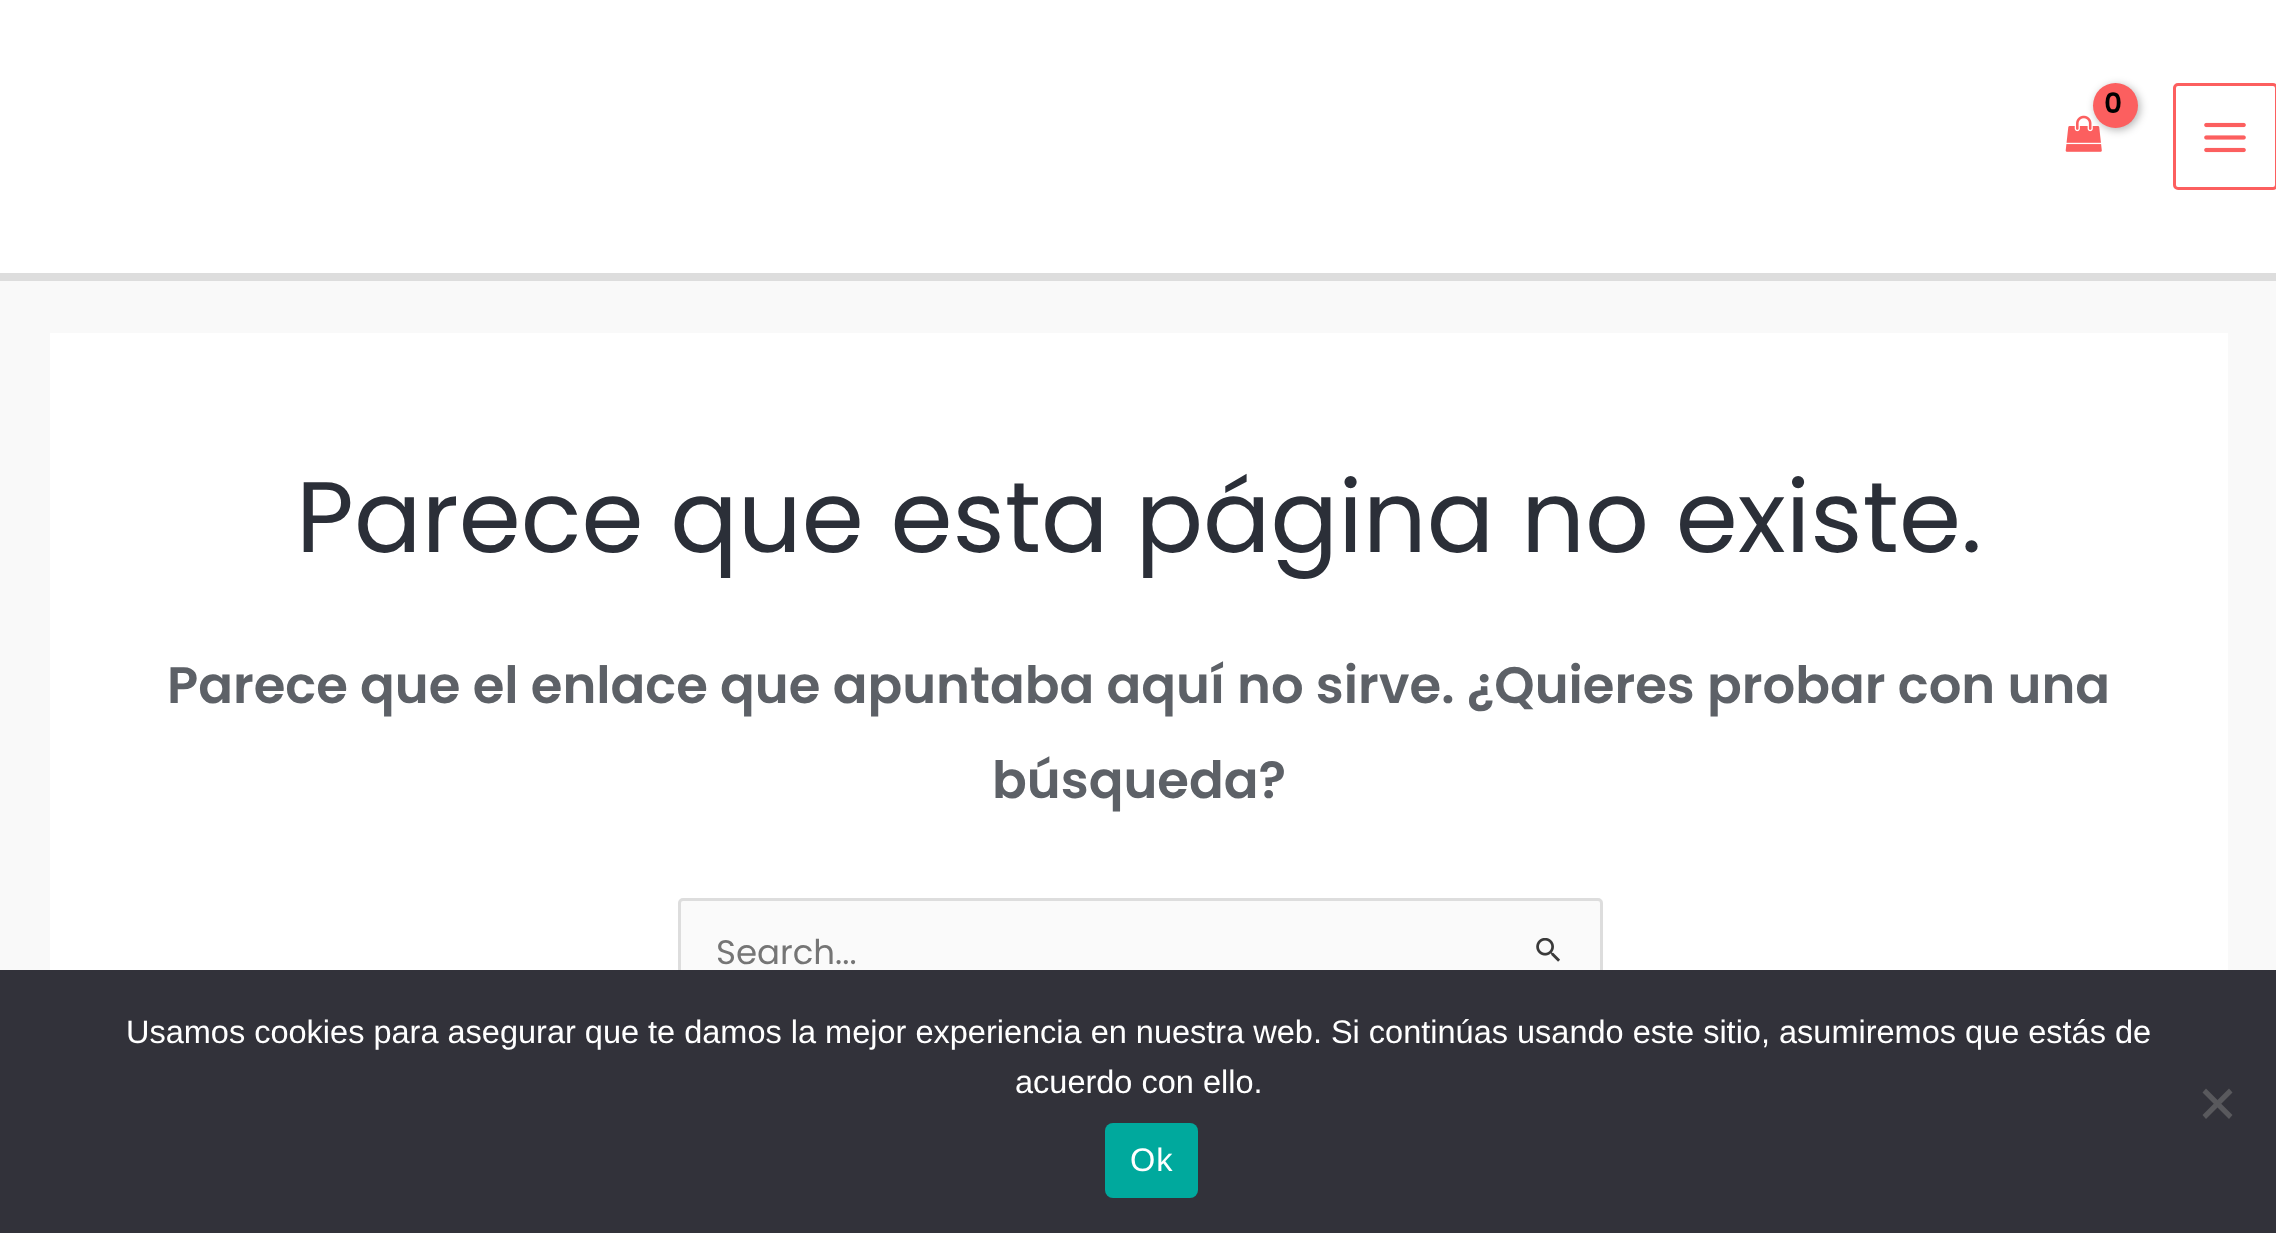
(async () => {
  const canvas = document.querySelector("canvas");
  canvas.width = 2276;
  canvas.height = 1233;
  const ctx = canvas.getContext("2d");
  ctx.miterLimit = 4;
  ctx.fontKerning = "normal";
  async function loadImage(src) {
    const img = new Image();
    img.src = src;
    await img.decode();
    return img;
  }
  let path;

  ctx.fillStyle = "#f9f9f9";
  ctx.fillRect(0, 0, 2276, 1233);
  ctx.fillStyle = "#ffffff";
  ctx.fillRect(0, 0, 2276, 273);
  ctx.fillStyle = "#dddddd";
  ctx.fillRect(0, 273, 2276, 8);
  ctx.drawImage(await loadImage("img/1.png"), 2065, 115, 37, 37);
  ctx.fillStyle = "rgba(0, 0, 0, 0.3)";
  ctx.filter = "blur(4px)";
  ctx.beginPath();
  ctx.roundRect(2095, 85, 45, 45, 22.5);
  ctx.fill();
  ctx.filter = "none";
  ctx.fillStyle = "#fc5f5f";
  ctx.beginPath();
  ctx.arc(2115.5, 105.5, 22.5, 0, Math.PI * 2);
  ctx.fill();
  ctx.beginPath();
  ctx.roundRect(2174.5, 84.5, 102, 104, 3.5);
  ctx.strokeStyle = "#fc5f5f";
  ctx.lineWidth = 3;
  ctx.stroke();
  ctx.drawImage(await loadImage("img/2.png"), 2204, 122, 42, 31);
  ctx.fillStyle = "#ffffff";
  ctx.fillRect(50, 333, 2178, 637);
  ctx.fillStyle = "#fafafa";
  ctx.beginPath();
  ctx.roundRect(679.5, 899.5, 922, 112, 3.5);
  ctx.fill();
  ctx.strokeStyle = "#dddddd";
  ctx.stroke();
  ctx.drawImage(await loadImage("img/3.png"), 1536, 938, 24, 24);
  ctx.fillStyle = "#32323a";
  ctx.fillRect(0, 970, 2276, 263);
  ctx.fillStyle = "#59595d";
  path = new Path2D("M2229 1088.5L2232.5 1092.5L2206 1119L2202.5 1115Z");
  ctx.fill(path);
  path = new Path2D("M2202.5 1092.5L2206 1088.5L2232.5 1115L2229 1119Z");
  ctx.fill(path);
  ctx.fillStyle = "#00a99d";
  ctx.beginPath();
  ctx.roundRect(1105, 1123, 93, 75, 8);
  ctx.fill();
  ctx.letterSpacing = "-1px";
  ctx.font = "600 28px Poppins";
  ctx.fillStyle = "#000000";
  ctx.fillText("0", 2104, 113);
  ctx.letterSpacing = "0px";
  ctx.font = "100px Poppins";
  ctx.fillStyle = "#2b2f38";
  ctx.fillText("Parece que esta página no existe.", 296, 552);
  ctx.font = "600 51.3px Poppins";
  ctx.fillStyle = "#5d6167";
  ctx.fillText("Parece que el enlace que apuntaba aquí no sirve. ¿Quieres probar con una", 167, 703);
  ctx.fillText("búsqueda?", 992, 798);
  ctx.font = "34px Poppins";
  ctx.fillStyle = "#757575";
  ctx.fillText("Search...", 716, 964);
  ctx.font = "32.5px Liberation Sans";
  ctx.fillStyle = "#ffffff";
  ctx.fillText("Usamos cookies para asegurar que te damos la mejor experiencia en nuestra web. Si continúas usando este sitio, asumiremos que estás de", 126, 1043);
  ctx.fillText("acuerdo con ello.", 1015, 1093);
  ctx.letterSpacing = "1px";
  ctx.fillText("Ok", 1130, 1171);
})();
